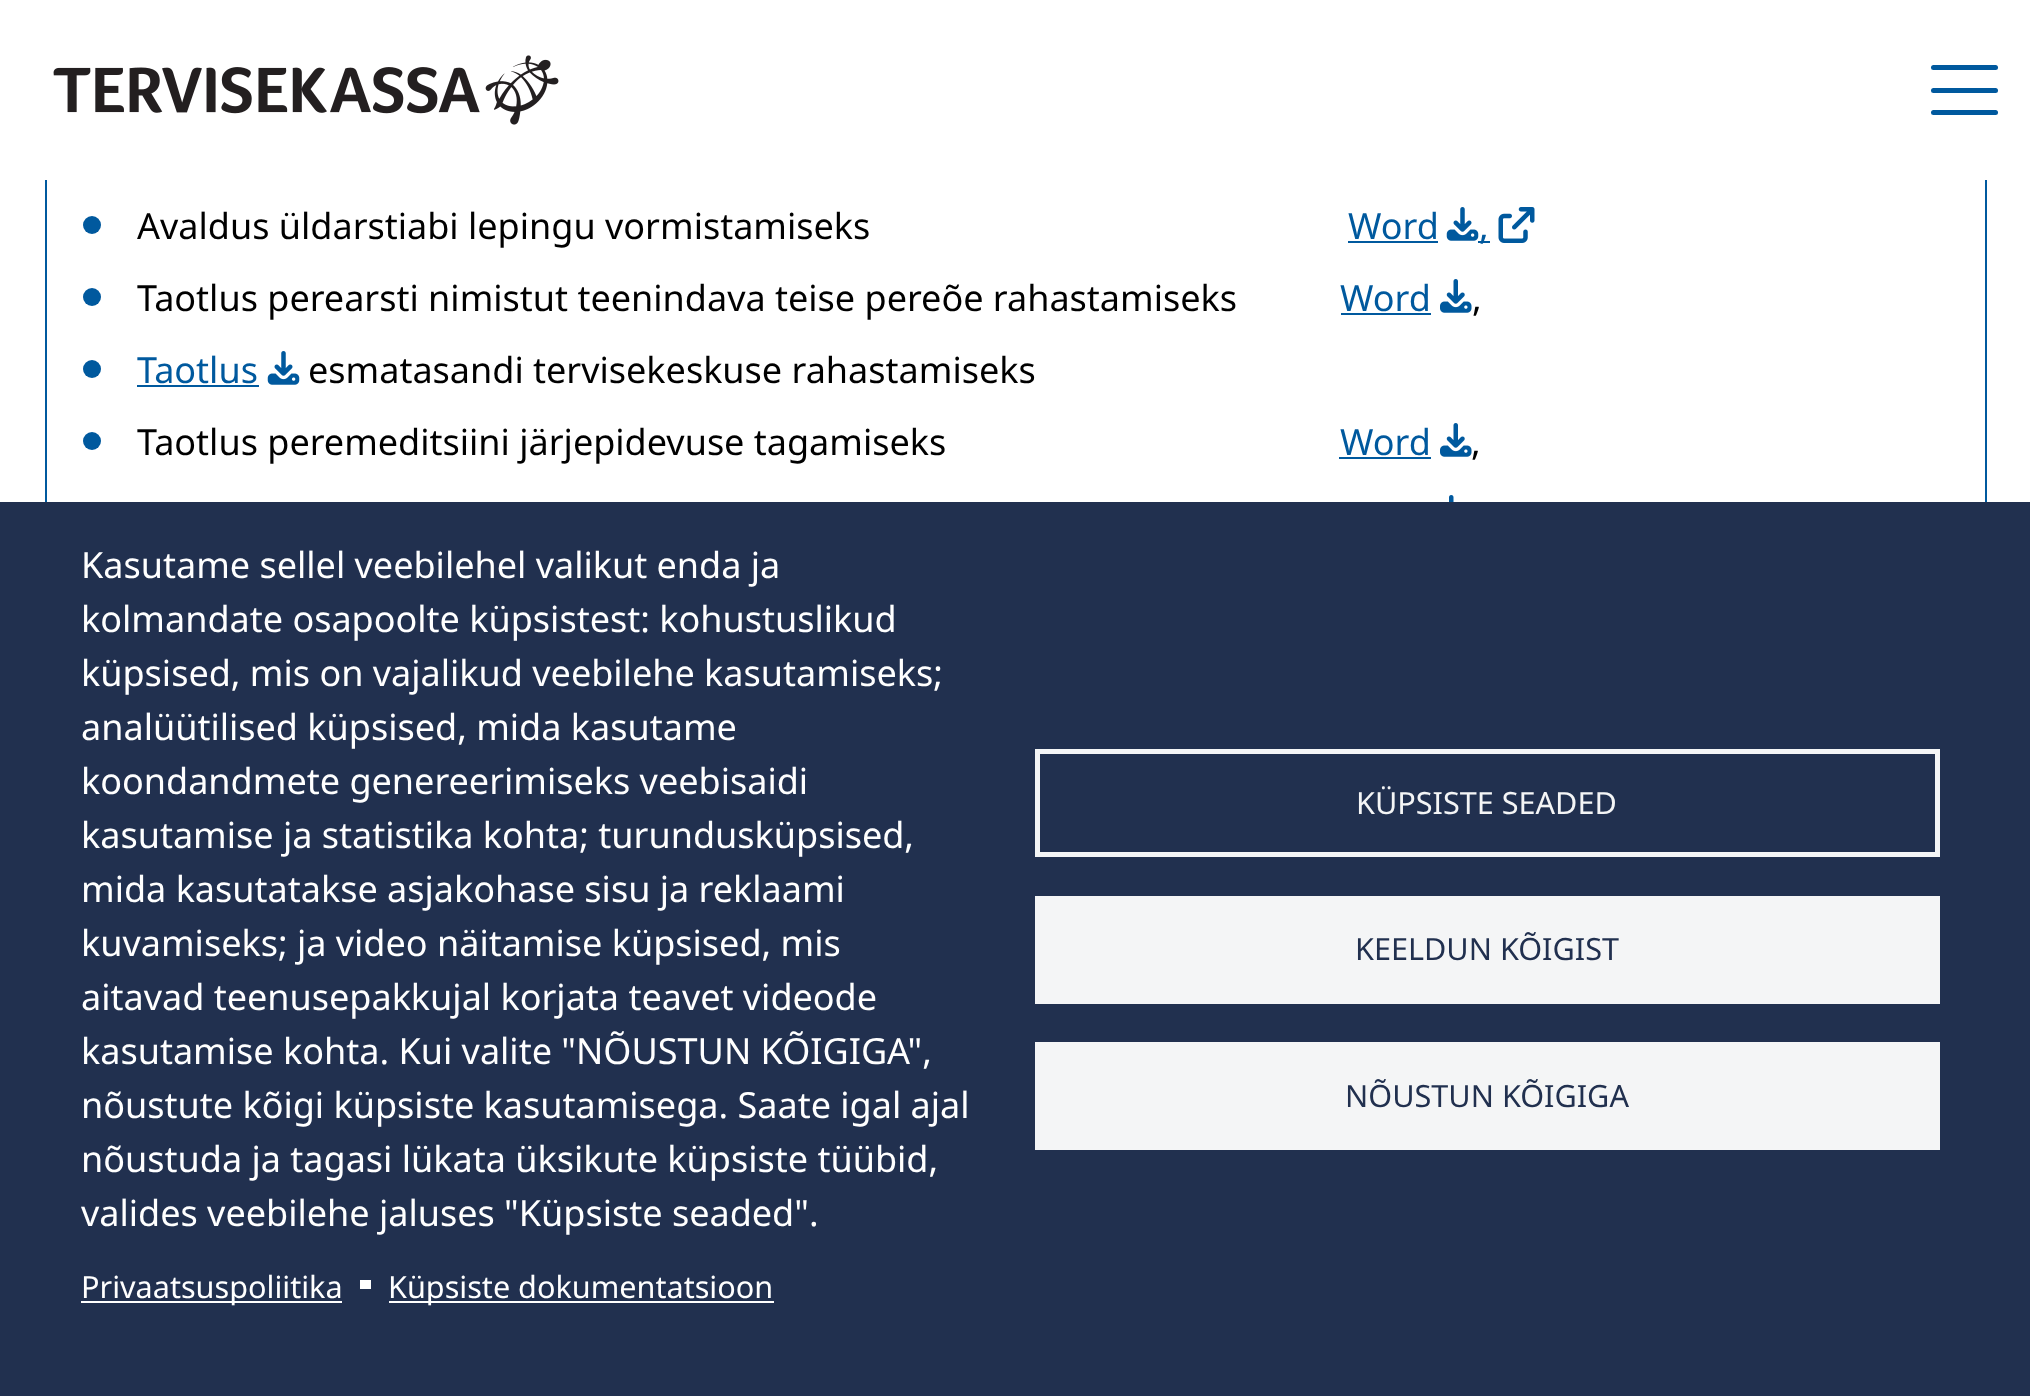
(async () => {
  const canvas = document.querySelector("canvas");
  canvas.width = 2030;
  canvas.height = 1396;
  const ctx = canvas.getContext("2d");
  ctx.miterLimit = 4;
  ctx.fontKerning = "normal";
  async function loadImage(src) {
    const img = new Image();
    img.src = src;
    await img.decode();
    return img;
  }

  ctx.fillStyle = "#ffffff";
  ctx.fillRect(0, 0, 2030, 1396);
  ctx.strokeStyle = "#00599e";
  ctx.lineWidth = 2;
  ctx.strokeRect(46, -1, 1940, 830);
  ctx.fillRect(45, 0, 1942, 180);
  ctx.drawImage(await loadImage("img/1.png"), 53, 55, 506, 70);
  ctx.fillStyle = "#00599e";
  ctx.beginPath();
  ctx.roundRect(1931, 65, 67, 5, 2.5);
  ctx.fill();
  ctx.beginPath();
  ctx.roundRect(1931, 88, 67, 5, 2.5);
  ctx.fill();
  ctx.beginPath();
  ctx.roundRect(1931, 110, 67, 5, 2.5);
  ctx.fill();
  ctx.beginPath();
  ctx.arc(92, 225, 9, 0, Math.PI * 2);
  ctx.fill();
  ctx.fillRect(1348, 241, 90, 2);
  ctx.drawImage(await loadImage("img/2.png"), 1446, 207, 33, 34);
  ctx.fillRect(1478, 241, 12, 2);
  ctx.drawImage(await loadImage("img/3.png"), 1498, 207, 37, 36);
  ctx.beginPath();
  ctx.arc(92, 297, 9, 0, Math.PI * 2);
  ctx.fill();
  ctx.fillRect(1341, 313, 90, 2);
  ctx.drawImage(await loadImage("img/4.png"), 1440, 279, 32, 34);
  ctx.beginPath();
  ctx.arc(92, 369, 9, 0, Math.PI * 2);
  ctx.fill();
  ctx.fillRect(137, 385, 122, 2);
  ctx.drawImage(await loadImage("img/2.png"), 267, 351, 33, 34);
  ctx.beginPath();
  ctx.arc(92, 441, 9, 0, Math.PI * 2);
  ctx.fill();
  ctx.fillRect(1339, 457, 92, 2);
  ctx.drawImage(await loadImage("img/4.png"), 1440, 423, 32, 34);
  ctx.drawImage(await loadImage("img/5.png"), 1449, 495, 5, 7);
  for (const [x, y, w, h, color] of [
    [0, 502, 2030, 894, "#21304f"],
    [81, 1301, 261, 2, "#ffffff"],
    [360, 1280, 11, 9, "#ffffff"],
    [389, 1301, 385, 2, "#ffffff"],
  ]) {
    ctx.fillStyle = color;
    ctx.fillRect(x, y, w, h);
  }
  ctx.strokeStyle = "#f4f5f6";
  ctx.lineWidth = 5;
  ctx.strokeRect(1037.5, 751.5, 900, 103);
  ctx.fillStyle = "#f4f5f6";
  ctx.fillRect(1035, 896, 905, 108);
  ctx.fillRect(1035, 1042, 905, 108);
  ctx.font = "36px Noto Sans";
  ctx.fillStyle = "#000000";
  ctx.fillText("Avaldus üldarstiabi lepingu vormistamiseks", 137, 239);
  ctx.fillStyle = "#00599e";
  ctx.fillText("Word", 1348, 239);
  ctx.fillText(",", 1479, 239);
  ctx.fillStyle = "#000000";
  ctx.fillText("Taotlus perearsti nimistut teenindava teise pereõe rahastamiseks", 137, 311);
  ctx.fillStyle = "#00599e";
  ctx.fillText("Word", 1340, 311);
  ctx.fillStyle = "#000000";
  ctx.fillText(",", 1472, 311);
  ctx.fillStyle = "#00599e";
  ctx.fillText("Taotlus", 137, 383);
  ctx.fillStyle = "#000000";
  ctx.fillText("esmatasandi tervisekeskuse rahastamiseks", 308, 383);
  ctx.fillText("Taotlus peremeditsiini järjepidevuse tagamiseks", 137, 455);
  ctx.fillStyle = "#00599e";
  ctx.fillText("Word", 1340, 455);
  ctx.fillStyle = "#000000";
  ctx.fillText(",", 1471, 455);
  ctx.fillStyle = "#ffffff";
  for (const [text, x, y] of [
    ["Kasutame sellel veebilehel valikut enda ja", 81, 578],
    ["kolmandate osapoolte küpsistest: kohustuslikud", 81, 632],
    ["küpsised, mis on vajalikud veebilehe kasutamiseks;", 81, 686],
    ["analüütilised küpsised, mida kasutame", 81, 740],
    ["koondandmete genereerimiseks veebisaidi", 81, 794],
    ["kasutamise ja statistika kohta; turundusküpsised,", 81, 848],
    ["mida kasutatakse asjakohase sisu ja reklaami", 81, 902],
    ["kuvamiseks; ja video näitamise küpsised, mis", 81, 956],
    ["aitavad teenusepakkujal korjata teavet videode", 81, 1010],
    ["kasutamise kohta. Kui valite \"NÕUSTUN KÕIGIGA\",", 81, 1064],
    ["nõustute kõigi küpsiste kasutamisega. Saate igal ajal", 81, 1118],
    ["nõustuda ja tagasi lükata üksikute küpsiste tüübid,", 81, 1172],
    ["valides veebilehe jaluses \"Küpsiste seaded\".", 81, 1226],
  ]) {
    ctx.fillText(text, x, y);
  }
  ctx.font = "30.6px Noto Sans";
  ctx.fillText("Privaatsuspoliitika", 81, 1298);
  ctx.fillText("Küpsiste dokumentatsioon", 388, 1298);
  ctx.fillStyle = "#f4f5f6";
  ctx.fillText("KÜPSISTE SEADED", 1356, 814);
  ctx.fillStyle = "#21304f";
  ctx.fillText("KEELDUN KÕIGIST", 1355, 960);
  ctx.fillText("NÕUSTUN KÕIGIGA", 1345, 1107);
})();
